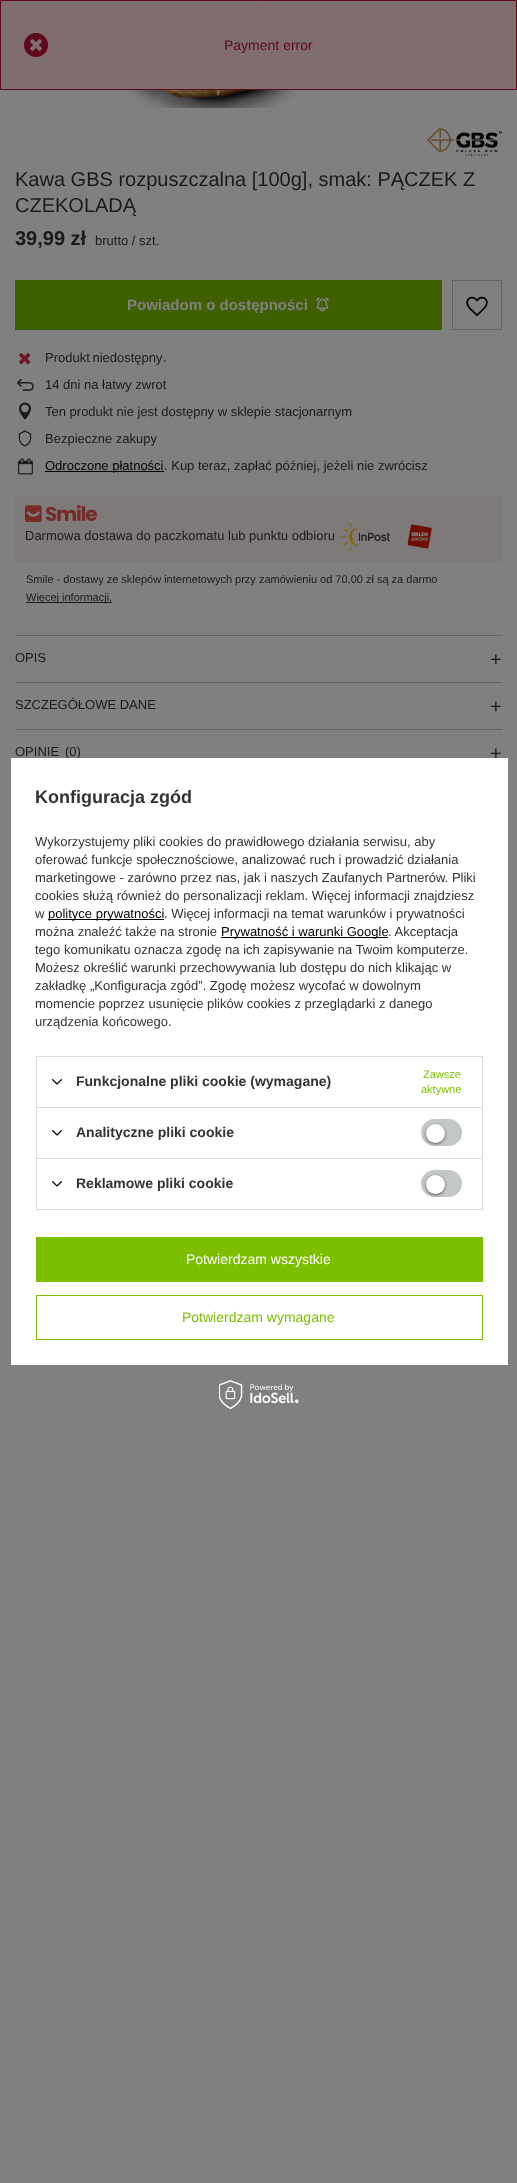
(async () => {
  const canvas = document.querySelector("canvas");
  canvas.width = 517;
  canvas.height = 2183;
  const ctx = canvas.getContext("2d");
  ctx.miterLimit = 4;
  ctx.fontKerning = "normal";
  async function loadImage(src) {
    const img = new Image();
    img.src = src;
    await img.decode();
    return img;
  }

  ctx.fillStyle = "#808080";
  ctx.fillRect(0, 0, 517, 2183);
  ctx.fillStyle = "#806e6f";
  ctx.beginPath();
  ctx.rect(0.5, 0.5, 516, 89);
  ctx.fill();
  ctx.strokeStyle = "#5f091e";
  ctx.stroke();
  ctx.drawImage(await loadImage("img/1.png"), 24, 33, 24, 24);
  ctx.drawImage(await loadImage("img/2.png"), 104, 90, 314, 18);
  ctx.drawImage(await loadImage("img/3.png"), 427, 128, 75, 28);
  ctx.fillStyle = "#3e6000";
  ctx.fillRect(15, 280, 427, 50);
  ctx.drawImage(await loadImage("img/4.png"), 316, 297, 13, 15);
  ctx.strokeStyle = "#626464";
  ctx.strokeRect(452.5, 280.5, 49, 49);
  ctx.drawImage(await loadImage("img/5.png"), 466, 296, 22, 21);
  ctx.drawImage(await loadImage("img/6.png"), 19, 353, 12, 12);
  ctx.drawImage(await loadImage("img/7.png"), 17, 378, 17, 13);
  ctx.drawImage(await loadImage("img/8.png"), 19, 402, 12, 18);
  ctx.drawImage(await loadImage("img/9.png"), 18, 430, 14, 17);
  ctx.drawImage(await loadImage("img/10.png"), 18, 458, 15, 17);
  ctx.fillStyle = "#000000";
  ctx.fillRect(45, 471, 119, 1);
  ctx.fillStyle = "#7e7a7a";
  ctx.fillRect(15, 495, 487, 67);
  ctx.drawImage(await loadImage("img/11.png"), 25, 505, 72, 17);
  ctx.drawImage(await loadImage("img/12.png"), 340, 522, 50, 30);
  ctx.drawImage(await loadImage("img/13.png"), 407, 524, 25, 25);
  for (const [x, y, w, h, color] of [
    [26, 602, 86, 1, "#1a1a1a"],
    [15, 635, 487, 1, "#626464"],
    [15, 682, 487, 1, "#626464"],
    [15, 729, 487, 1, "#626464"],
  ]) {
    ctx.fillStyle = color;
    ctx.fillRect(x, y, w, h);
  }
  ctx.drawImage(await loadImage("img/15.png"), 219, 1380, 80, 29);
  ctx.font = "14px Liberation Sans";
  ctx.fillStyle = "#5f091e";
  ctx.fillText("Payment error", 224, 50);
  ctx.font = "20px Liberation Sans";
  ctx.fillStyle = "#1a1a1a";
  ctx.fillText("Kawa GBS rozpuszczalna [100g], smak: PĄCZEK Z", 15, 186);
  ctx.fillText("CZEKOLADĄ", 15, 212);
  ctx.font = "bold 20px Liberation Sans";
  ctx.fillText("39,99 zł", 15, 245);
  ctx.font = "13px Liberation Sans";
  ctx.fillText("brutto / szt.", 95, 245);
  ctx.font = "bold 15px Liberation Sans";
  ctx.fillStyle = "#808080";
  ctx.fillText("Powiadom o dostępności", 127, 310);
  ctx.wordSpacing = "-1px";
  ctx.font = "13px Liberation Sans";
  ctx.fillStyle = "#1a1a1a";
  ctx.fillText("Produkt niedostępny", 45, 362);
  ctx.wordSpacing = "0px";
  for (const [text, x, y] of [
    [".", 163, 362],
    ["14 dni na łatwy zwrot", 45, 389],
    ["Ten produkt nie jest dostępny w sklepie stacjonarnym", 45, 416],
    ["Bezpieczne zakupy", 45, 443],
  ]) {
    ctx.fillText(text, x, y);
  }
  ctx.fillStyle = "#000000";
  ctx.fillText("Odroczone płatności", 45, 470);
  ctx.fillStyle = "#1a1a1a";
  ctx.fillText(". Kup teraz, zapłać później, jeżeli nie zwrócisz", 164, 470);
  ctx.fillText("Darmowa dostawa do paczkomatu lub punktu odbioru", 25, 540);
  ctx.font = "11px Liberation Sans";
  ctx.fillText("Smile - dostawy ze sklepów internetowych przy zamówieniu od 70,00 zł są za darmo", 26, 583);
  ctx.fillText("Więcej informacji.", 26, 601);
  ctx.font = "13px Liberation Sans";
  ctx.fillText("OPIS", 15, 662);
  ctx.font = "20px Liberation Sans";
  ctx.fillText("+", 490, 666);
  ctx.font = "13px Liberation Sans";
  ctx.fillText("SZCZEGÓŁOWE DANE", 15, 709);
  ctx.font = "20px Liberation Sans";
  ctx.fillText("+", 490, 713);
  ctx.font = "13px Liberation Sans";
  ctx.fillText("OPINIE", 15, 756);
  ctx.fillText("(0)", 65, 756);
  ctx.font = "20px Liberation Sans";
  ctx.fillText("+", 490, 760);
  ctx.fillStyle = "#ffffff";
  ctx.fillRect(11, 758, 497, 607);
  ctx.font = "bold 18px Liberation Sans";
  ctx.fillStyle = "#333333";
  ctx.fillText("Konfiguracja zgód", 35, 803);
  ctx.font = "13px Liberation Sans";
  for (const [text, x, y] of [
    ["Wykorzystujemy pliki cookies do prawidłowego działania serwisu, aby", 35, 846],
    ["oferować funkcje społecznościowe, analizować ruch i prowadzić działania", 35, 864],
    ["marketingowe - zarówno przez nas, jak i naszych Zaufanych Partnerów. Pliki", 35, 882],
    ["cookies służą również do personalizacji reklam. Więcej informacji znajdziesz", 35, 900],
    ["w", 35, 918],
  ]) {
    ctx.fillText(text, x, y);
  }
  ctx.fillStyle = "#000000";
  ctx.fillRect(48, 919, 116, 1);
  ctx.fillText("polityce prywatności", 48, 918);
  ctx.fillStyle = "#333333";
  ctx.fillText(". Więcej informacji na temat warunków i prywatności", 164, 918);
  ctx.fillText("można znaleźć także na stronie", 35, 936);
  ctx.fillStyle = "#000000";
  ctx.fillRect(221, 937, 167, 1);
  ctx.fillText("Prywatność i warunki Google", 221, 936);
  ctx.fillStyle = "#333333";
  for (const [text, x, y] of [
    [". Akceptacja", 388, 936],
    ["tego komunikatu oznacza zgodę na ich zapisywanie na Twoim komputerze.", 35, 954],
    ["Możesz określić warunki przechowywania lub dostępu do nich klikając w", 35, 972],
    ["zakładkę „Konfiguracja zgód”. Zgodę możesz wycofać w dowolnym", 35, 990],
    ["momencie poprzez usunięcie plików cookies z przeglądarki z danego", 35, 1008],
    ["urządzenia końcowego.", 35, 1026],
  ]) {
    ctx.fillText(text, x, y);
  }
  for (const [x, y, w, h, color] of [
    [36, 1056, 447, 1, "#dbdbdb"],
    [482, 1056, 1, 51, "#dbdbdb"],
    [36, 1056, 1, 51, "#dbdbdb"],
  ]) {
    ctx.fillStyle = color;
    ctx.fillRect(x, y, w, h);
  }
  ctx.drawImage(await loadImage("img/14.png"), 52, 1079, 10, 6);
  ctx.font = "bold 14px Liberation Sans";
  ctx.fillStyle = "#333333";
  ctx.fillText("Funkcjonalne pliki cookie (wymagane)", 76, 1086);
  ctx.font = "11px Liberation Sans";
  ctx.fillStyle = "#7cbf00";
  ctx.fillText("Zawsze", 423, 1078);
  ctx.fillText("aktywne", 421, 1093);
  for (const [x, y, w, h, color] of [
    [36, 1107, 447, 1, "#dbdbdb"],
    [482, 1107, 1, 51, "#dbdbdb"],
    [36, 1107, 1, 51, "#dbdbdb"],
  ]) {
    ctx.fillStyle = color;
    ctx.fillRect(x, y, w, h);
  }
  ctx.drawImage(await loadImage("img/14.png"), 52, 1130, 10, 6);
  ctx.font = "bold 14px Liberation Sans";
  ctx.fillStyle = "#333333";
  ctx.fillText("Analityczne pliki cookie", 76, 1137);
  ctx.fillStyle = "#c4c7c8";
  ctx.beginPath();
  ctx.roundRect(421, 1119, 41, 27, 13.5);
  ctx.fill();
  ctx.fillStyle = "rgba(0, 0, 0, 0.56)";
  ctx.filter = "blur(1.5px)";
  ctx.beginPath();
  ctx.roundRect(426, 1125, 19, 19, 9.5);
  ctx.fill();
  ctx.filter = "none";
  ctx.fillStyle = "#ffffff";
  ctx.beginPath();
  ctx.arc(435.5, 1133.5, 9.5, 0, Math.PI * 2);
  ctx.fill();
  ctx.strokeStyle = "#dbdbdb";
  ctx.strokeRect(36.5, 1158.5, 446, 51);
  ctx.drawImage(await loadImage("img/14.png"), 52, 1181, 10, 6);
  ctx.fillStyle = "#333333";
  ctx.fillText("Reklamowe pliki cookie", 76, 1188);
  ctx.fillStyle = "#c4c7c8";
  ctx.beginPath();
  ctx.roundRect(421, 1170, 41, 27, 13.5);
  ctx.fill();
  ctx.fillStyle = "rgba(0, 0, 0, 0.56)";
  ctx.filter = "blur(1.5px)";
  ctx.beginPath();
  ctx.roundRect(426, 1176, 19, 19, 9.5);
  ctx.fill();
  ctx.filter = "none";
  ctx.fillStyle = "#ffffff";
  ctx.beginPath();
  ctx.arc(435.5, 1184.5, 9.5, 0, Math.PI * 2);
  ctx.fill();
  ctx.fillStyle = "#7cbf00";
  ctx.fillRect(36, 1237, 447, 45);
  ctx.font = "14px Liberation Sans";
  ctx.fillStyle = "#ffffff";
  ctx.fillText("Potwierdzam wszystkie", 186, 1264);
  ctx.strokeStyle = "#7cbf00";
  ctx.strokeRect(36.5, 1295.5, 446, 44);
  ctx.fillStyle = "#7cbf00";
  ctx.fillText("Potwierdzam wymagane", 182, 1322);
})();
